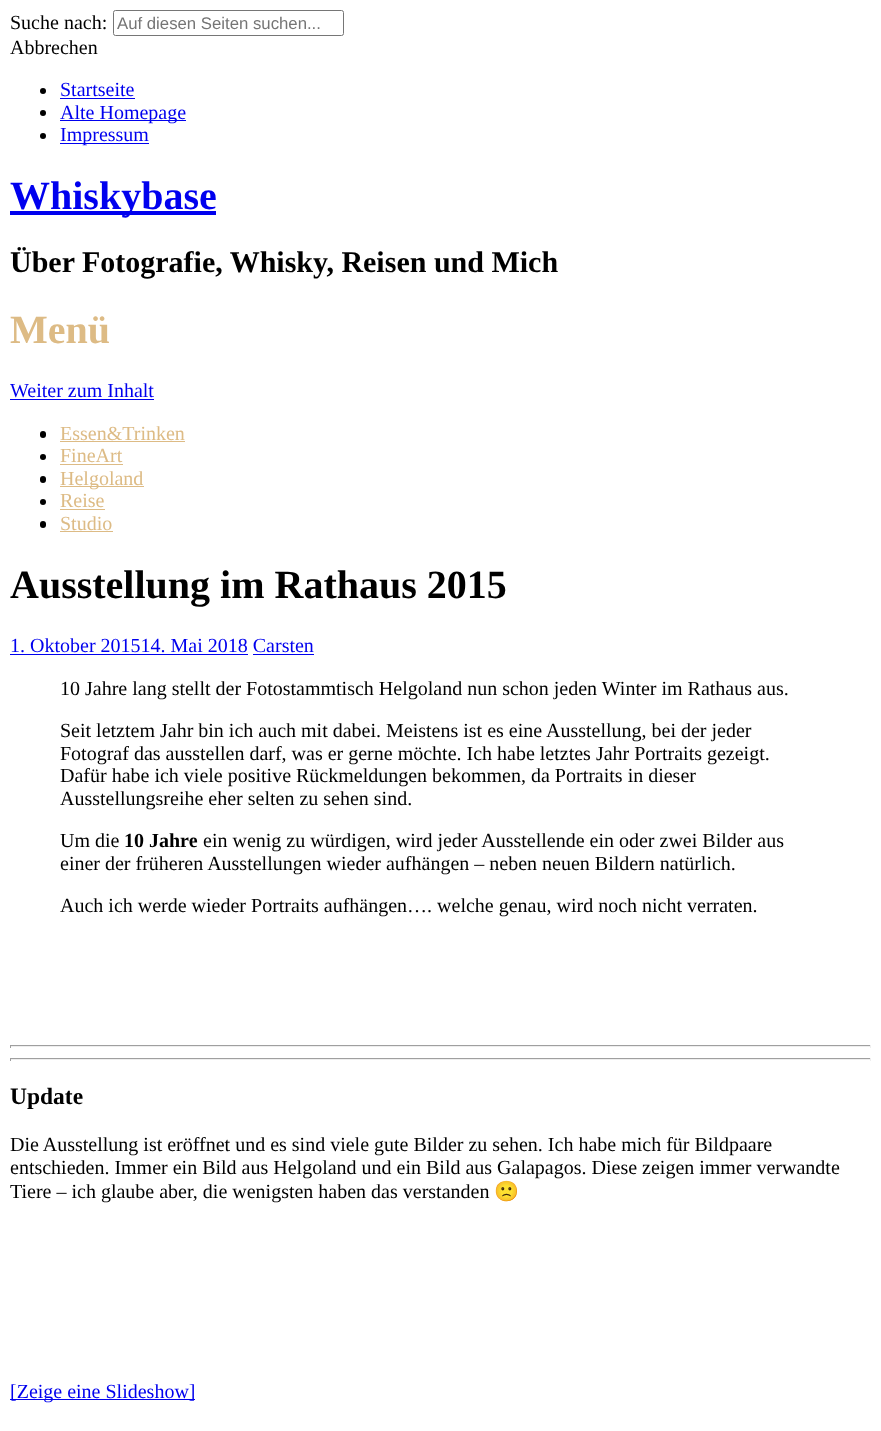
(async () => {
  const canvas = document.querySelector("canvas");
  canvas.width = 881;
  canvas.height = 1431;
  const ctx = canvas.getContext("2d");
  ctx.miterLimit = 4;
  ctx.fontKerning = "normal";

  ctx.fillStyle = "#ffffff";
  ctx.fillRect(0, 0, 881, 1431);
  ctx.beginPath();
  ctx.roundRect(113.5, 10.5, 230, 25, 2);
  ctx.strokeStyle = "#767676";
  ctx.stroke();
  ctx.fillStyle = "#000000";
  ctx.beginPath();
  ctx.arc(43, 91, 3, 0, Math.PI * 2);
  ctx.fill();
  ctx.fillStyle = "#0000ee";
  ctx.fillRect(60, 98, 75, 1);
  ctx.fillStyle = "#000000";
  ctx.beginPath();
  ctx.arc(43, 113, 3, 0, Math.PI * 2);
  ctx.fill();
  ctx.fillStyle = "#0000ee";
  ctx.fillRect(60, 120, 126, 1);
  ctx.fillStyle = "#000000";
  ctx.beginPath();
  ctx.arc(43, 136, 3, 0, Math.PI * 2);
  ctx.fill();
  for (const [x, y, w, h, color] of [
    [60, 143, 89, 1, "#0000ee"],
    [10, 211, 206, 4, "#0000ee"],
    [10, 399, 144, 1, "#0000ee"],
  ]) {
    ctx.fillStyle = color;
    ctx.fillRect(x, y, w, h);
  }
  ctx.fillStyle = "#000000";
  ctx.beginPath();
  ctx.roundRect(40, 431, 6, 7, 3);
  ctx.fill();
  ctx.fillStyle = "#ddbb85";
  ctx.fillRect(60, 441, 125, 1);
  ctx.fillStyle = "#000000";
  ctx.beginPath();
  ctx.arc(43, 457, 3, 0, Math.PI * 2);
  ctx.fill();
  ctx.fillStyle = "#ddbb85";
  ctx.fillRect(60, 464, 63, 1);
  ctx.fillStyle = "#000000";
  ctx.beginPath();
  ctx.roundRect(40, 476, 6, 7, 3);
  ctx.fill();
  ctx.fillStyle = "#ddbb85";
  ctx.fillRect(60, 486, 84, 1);
  ctx.fillStyle = "#000000";
  ctx.beginPath();
  ctx.arc(43, 502, 3, 0, Math.PI * 2);
  ctx.fill();
  ctx.fillStyle = "#ddbb85";
  ctx.fillRect(60, 509, 45, 1);
  ctx.fillStyle = "#000000";
  ctx.beginPath();
  ctx.roundRect(40, 521, 6, 7, 3);
  ctx.fill();
  for (const [x, y, w, h, color] of [
    [60, 531, 53, 1, "#ddbb85"],
    [10, 654, 238, 1, "#0000ee"],
    [253, 654, 61, 1, "#0000ee"],
    [10, 1045, 861, 1, "#9f9f9f"],
    [870, 1045, 1, 3, "#eeeeee"],
    [10, 1046, 861, 1, "#eeeeee"],
    [10, 1045, 1, 3, "#9f9f9f"],
    [10, 1058, 861, 1, "#9f9f9f"],
    [870, 1058, 1, 3, "#eeeeee"],
    [10, 1059, 861, 1, "#eeeeee"],
    [10, 1058, 1, 3, "#9f9f9f"],
    [10, 1399, 185, 1, "#0000ee"],
  ]) {
    ctx.fillStyle = color;
    ctx.fillRect(x, y, w, h);
  }
  ctx.font = "20px Liberation Serif";
  ctx.fillStyle = "#000000";
  ctx.fillText("Suche nach:", 10, 29);
  ctx.font = "16.75px Liberation Sans";
  ctx.fillStyle = "#757575";
  ctx.fillText("Auf diesen Seiten suchen...", 117, 29);
  ctx.font = "20px Liberation Serif";
  ctx.fillStyle = "#000000";
  ctx.fillText("Abbrechen", 10, 54);
  ctx.fillStyle = "#0000ee";
  for (const [text, x, y] of [
    ["Startseite", 60, 96],
    ["Alte Homepage", 60, 119],
    ["Impressum", 60, 141],
  ]) {
    ctx.fillText(text, x, y);
  }
  ctx.font = "bold 40px Liberation Serif";
  ctx.fillText("Whiskybase", 10, 209);
  ctx.font = "bold 30px Liberation Serif";
  ctx.fillStyle = "#000000";
  ctx.fillText("Über Fotografie, Whisky, Reisen und Mich", 10, 272);
  ctx.font = "bold 40px Liberation Serif";
  ctx.fillStyle = "#ddbb85";
  ctx.fillText("Menü", 10, 343);
  ctx.font = "20px Liberation Serif";
  ctx.fillStyle = "#0000ee";
  ctx.fillText("Weiter zum Inhalt", 10, 397);
  ctx.fillStyle = "#ddbb85";
  for (const [text, x, y] of [
    ["Essen&Trinken", 60, 440],
    ["FineArt", 60, 462],
    ["Helgoland", 60, 485],
    ["Reise", 60, 507],
    ["Studio", 60, 530],
  ]) {
    ctx.fillText(text, x, y);
  }
  ctx.font = "bold 40px Liberation Serif";
  ctx.fillStyle = "#000000";
  ctx.fillText("Ausstellung im Rathaus 2015", 10, 598);
  ctx.font = "20px Liberation Serif";
  ctx.fillStyle = "#0000ee";
  ctx.fillText("1. Oktober 201514. Mai 2018 Carsten", 10, 652);
  ctx.fillStyle = "#000000";
  for (const [text, x, y] of [
    ["10 Jahre lang stellt der Fotostammtisch Helgoland nun schon jeden Winter im Rathaus aus.", 60, 695],
    ["Seit letztem Jahr bin ich auch mit dabei. Meistens ist es eine Ausstellung, bei der jeder", 60, 737],
    ["Fotograf das ausstellen darf, was er gerne möchte. Ich habe letztes Jahr Portraits gezeigt.", 60, 760],
    ["Dafür habe ich viele positive Rückmeldungen bekommen, da Portraits in dieser", 60, 782],
    ["Ausstellungsreihe eher selten zu sehen sind.", 60, 805],
    ["Um die", 60, 847],
  ]) {
    ctx.fillText(text, x, y);
  }
  ctx.font = "bold 20px Liberation Serif";
  ctx.fillText("10 Jahre", 124, 847);
  ctx.font = "20px Liberation Serif";
  for (const [text, x, y] of [
    ["ein wenig zu würdigen, wird jeder Ausstellende ein oder zwei Bilder aus", 203, 847],
    ["einer der früheren Ausstellungen wieder aufhängen – neben neuen Bildern natürlich.", 60, 870],
    ["Auch ich werde wieder Portraits aufhängen…. welche genau, wird noch nicht verraten.", 60, 912],
  ]) {
    ctx.fillText(text, x, y);
  }
  ctx.font = "bold 23.5px Liberation Serif";
  ctx.fillText("Update", 10, 1104);
  ctx.font = "20px Liberation Serif";
  for (const [text, x, y] of [
    ["Die Ausstellung ist eröffnet und es sind viele gute Bilder zu sehen. Ich habe mich für Bildpaare", 10, 1151],
    ["entschieden. Immer ein Bild aus Helgoland und ein Bild aus Galapagos. Diese zeigen immer verwandte", 10, 1174],
    ["Tiere – ich glaube aber, die wenigsten haben das verstanden", 10, 1198],
  ]) {
    ctx.fillText(text, x, y);
  }
  ctx.font = "20px Noto Color Emoji";
  ctx.fillText("🙁", 494, 1198);
  ctx.font = "20px Liberation Serif";
  ctx.fillStyle = "#0000ee";
  ctx.fillText("[Zeige eine Slideshow]", 10, 1398);
})();
